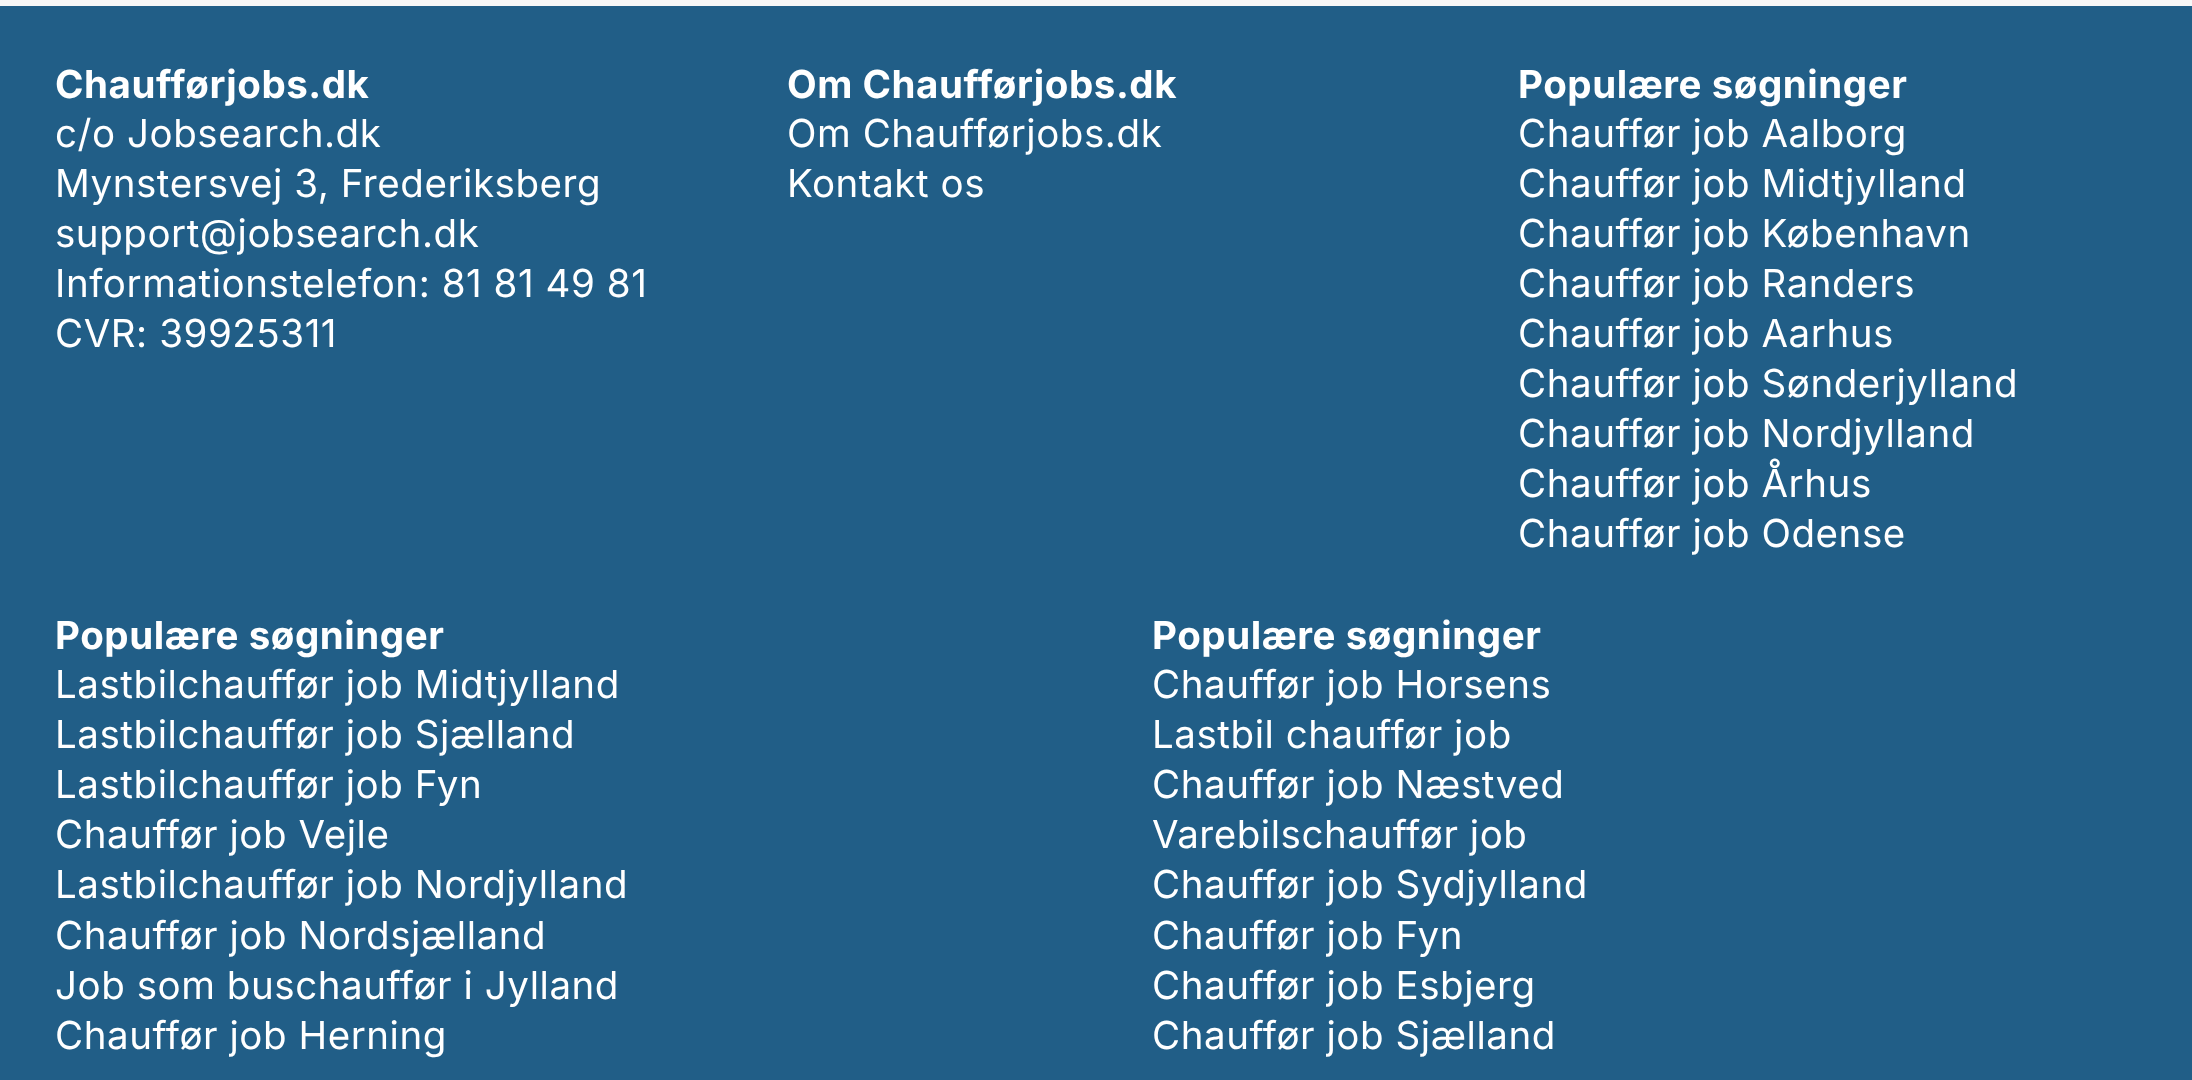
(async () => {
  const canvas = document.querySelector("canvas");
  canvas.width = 2192;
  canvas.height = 1080;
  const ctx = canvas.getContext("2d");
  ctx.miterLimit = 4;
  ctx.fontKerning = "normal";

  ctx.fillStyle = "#215e87";
  ctx.fillRect(0, 0, 2192, 1080);
  ctx.fillStyle = "#f7f7f7";
  ctx.fillRect(0, 0, 2192, 6);
  ctx.letterSpacing = "0.55px";
  ctx.font = "bold 38.5px Inter";
  ctx.fillStyle = "#ffffff";
  ctx.fillText("Chaufførjobs.dk", 55, 98);
  ctx.font = "38.5px Inter";
  for (const [text, x, y] of [
    ["c/o Jobsearch.dk", 55, 147],
    ["Mynstersvej 3, Frederiksberg", 55, 197],
    ["support@jobsearch.dk", 55, 247],
    ["Informationstelefon: 81 81 49 81", 55, 297],
    ["CVR: 39925311", 55, 347],
  ]) {
    ctx.fillText(text, x, y);
  }
  ctx.font = "bold 38.5px Inter";
  ctx.fillText("Om Chaufførjobs.dk", 787, 98);
  ctx.font = "38.5px Inter";
  ctx.fillText("Om Chaufførjobs.dk", 787, 147);
  ctx.fillText("Kontakt os", 787, 197);
  ctx.font = "bold 38.5px Inter";
  ctx.fillText("Populære søgninger", 1518, 98);
  ctx.font = "38.5px Inter";
  for (const [text, x, y] of [
    ["Chauffør job Aalborg", 1518, 147],
    ["Chauffør job Midtjylland", 1518, 197],
    ["Chauffør job København", 1518, 247],
    ["Chauffør job Randers", 1518, 297],
    ["Chauffør job Aarhus", 1518, 347],
    ["Chauffør job Sønderjylland", 1518, 397],
    ["Chauffør job Nordjylland", 1518, 447],
    ["Chauffør job Århus", 1518, 497],
    ["Chauffør job Odense", 1518, 547],
  ]) {
    ctx.fillText(text, x, y);
  }
  ctx.font = "bold 38.5px Inter";
  ctx.fillText("Populære søgninger", 55, 649);
  ctx.font = "38.5px Inter";
  for (const [text, x, y] of [
    ["Lastbilchauffør job Midtjylland", 55, 698],
    ["Lastbilchauffør job Sjælland", 55, 748],
    ["Lastbilchauffør job Fyn", 55, 798],
    ["Chauffør job Vejle", 55, 848],
    ["Lastbilchauffør job Nordjylland", 55, 898],
    ["Chauffør job Nordsjælland", 55, 949],
    ["Job som buschauffør i Jylland", 55, 999],
    ["Chauffør job Herning", 55, 1049],
  ]) {
    ctx.fillText(text, x, y);
  }
  ctx.font = "bold 38.5px Inter";
  ctx.fillText("Populære søgninger", 1152, 649);
  ctx.font = "38.5px Inter";
  for (const [text, x, y] of [
    ["Chauffør job Horsens", 1152, 698],
    ["Lastbil chauffør job", 1152, 748],
    ["Chauffør job Næstved", 1152, 798],
    ["Varebilschauffør job", 1152, 848],
    ["Chauffør job Sydjylland", 1152, 898],
    ["Chauffør job Fyn", 1152, 949],
    ["Chauffør job Esbjerg", 1152, 999],
    ["Chauffør job Sjælland", 1152, 1049],
  ]) {
    ctx.fillText(text, x, y);
  }
})();
